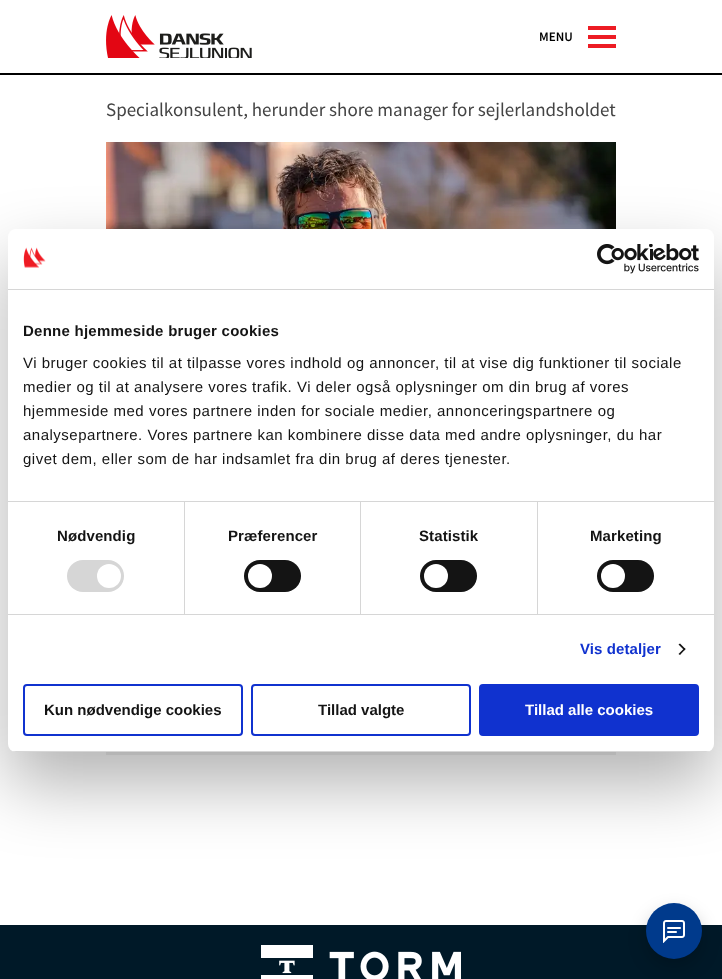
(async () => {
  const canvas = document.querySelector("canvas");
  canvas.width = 722;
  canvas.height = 979;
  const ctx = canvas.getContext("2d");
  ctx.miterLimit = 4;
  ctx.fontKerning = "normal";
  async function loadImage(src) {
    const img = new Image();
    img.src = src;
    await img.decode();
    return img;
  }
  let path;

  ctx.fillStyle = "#ffffff";
  ctx.fillRect(0, 0, 722, 979);
  ctx.fillStyle = "#000000";
  ctx.fillRect(0, 73, 722, 2);
  ctx.drawImage(await loadImage("img/1.png"), 106, 15, 146, 43);
  for (const [x, y, w, h, color] of [
    [588, 26, 28, 4, "#ed1c24"],
    [588, 35, 28, 4, "#ed1c24"],
    [588, 44, 28, 4, "#ed1c24"],
    [106, 752, 510, 3, "#f1f1f1"],
  ]) {
    ctx.fillStyle = color;
    ctx.fillRect(x, y, w, h);
  }
  ctx.drawImage(await loadImage("img/2.png"), 106, 142, 510, 87);
  ctx.fillStyle = "rgba(0, 0, 0, 0.3)";
  ctx.filter = "blur(34px)";
  ctx.beginPath();
  ctx.roundRect(8, 261, 706, 523, 8);
  ctx.fill();
  ctx.filter = "none";
  ctx.fillStyle = "#ffffff";
  ctx.beginPath();
  ctx.roundRect(8, 229, 706, 523, 8);
  ctx.fill();
  ctx.fillStyle = "#d6d6d6";
  ctx.fillRect(8, 289, 706, 1);
  ctx.drawImage(await loadImage("img/3.png"), 23, 247, 23, 21);
  ctx.drawImage(await loadImage("img/4.png"), 597, 244, 102, 30);
  for (const [x, y, w, h, color] of [
    [8, 501, 706, 1, "#d6d6d6"],
    [8, 614, 706, 1, "#d6d6d6"],
    [184, 502, 1, 112, "#d6d6d6"],
  ]) {
    ctx.fillStyle = color;
    ctx.fillRect(x, y, w, h);
  }
  ctx.beginPath();
  ctx.roundRect(67, 560, 57, 32, 16);
  ctx.fill();
  ctx.fillStyle = "#ffffff";
  ctx.beginPath();
  ctx.arc(109, 576, 12, 0, Math.PI * 2);
  ctx.fill();
  ctx.fillStyle = "#d6d6d6";
  ctx.fillRect(360, 502, 1, 112);
  ctx.fillStyle = "#141414";
  ctx.beginPath();
  ctx.roundRect(244, 560, 57, 32, 16);
  ctx.fill();
  ctx.fillStyle = "#ffffff";
  ctx.beginPath();
  ctx.arc(260, 576, 12, 0, Math.PI * 2);
  ctx.fill();
  ctx.fillStyle = "#d6d6d6";
  ctx.fillRect(537, 502, 1, 112);
  ctx.fillStyle = "#141414";
  ctx.beginPath();
  ctx.roundRect(420, 560, 57, 32, 16);
  ctx.fill();
  ctx.fillStyle = "#ffffff";
  ctx.beginPath();
  ctx.arc(436, 576, 12, 0, Math.PI * 2);
  ctx.fill();
  ctx.fillStyle = "#141414";
  ctx.beginPath();
  ctx.roundRect(597, 560, 57, 32, 16);
  ctx.fill();
  ctx.fillStyle = "#ffffff";
  ctx.beginPath();
  ctx.arc(613, 576, 12, 0, Math.PI * 2);
  ctx.fill();
  ctx.fillStyle = "#141414";
  path = new Path2D("M680 643.5L685.5 649L684.5 650.5L678.5 644.5Z");
  ctx.fill(path);
  path = new Path2D("M684.5 648L685.5 649L680 655L678.5 654Z");
  ctx.fill(path);
  ctx.save();
  ctx.beginPath();
  ctx.roundRect(8, 229, 706, 523, 8);
  ctx.clip();
  ctx.fillStyle = "#d6d6d6";
  ctx.fillRect(8, 751, 706, 1);
  ctx.restore();
  ctx.beginPath();
  ctx.roundRect(24, 685, 218, 50, 3);
  ctx.strokeStyle = "#1032cf";
  ctx.lineWidth = 2;
  ctx.stroke();
  ctx.beginPath();
  ctx.roundRect(252, 685, 218, 50, 3);
  ctx.stroke();
  ctx.fillStyle = "#1032cf";
  ctx.beginPath();
  ctx.roundRect(480, 685, 218, 50, 3);
  ctx.fill();
  ctx.stroke();
  ctx.fillStyle = "#001928";
  ctx.fillRect(0, 925, 722, 54);
  ctx.fillStyle = "rgba(0, 0, 0, 0.2)";
  ctx.filter = "blur(9px)";
  ctx.beginPath();
  ctx.roundRect(646, 911, 56, 56, 28);
  ctx.fill();
  ctx.filter = "none";
  ctx.fillStyle = "#003a8c";
  ctx.beginPath();
  ctx.arc(674, 931, 28, 0, Math.PI * 2);
  ctx.fill();
  ctx.drawImage(await loadImage("img/5.png"), 663, 920, 22, 23);
  ctx.drawImage(await loadImage("img/6.png"), 261, 945, 200, 34);
  ctx.font = "600 13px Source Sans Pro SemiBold";
  ctx.fillStyle = "#000000";
  ctx.fillText("MENU", 539, 41);
  ctx.font = "19px Source Sans Pro";
  ctx.fillStyle = "#444444";
  ctx.fillText("Specialkonsulent, herunder shore manager for sejlerlandsholdet", 106, 116);
  ctx.letterSpacing = "0.25px";
  ctx.font = "bold 15px Liberation Sans";
  ctx.fillStyle = "#141414";
  ctx.fillText("Denne hjemmeside bruger cookies", 23, 336);
  ctx.letterSpacing = "0.5px";
  ctx.font = "15px Liberation Sans";
  for (const [text, x, y] of [
    ["Vi bruger cookies til at tilpasse vores indhold og annoncer, til at vise dig funktioner til sociale", 23, 368],
    ["medier og til at analysere vores trafik. Vi deler også oplysninger om din brug af vores", 23, 392],
    ["hjemmeside med vores partnere inden for sociale medier, annonceringspartnere og", 23, 416],
    ["analysepartnere. Vores partnere kan kombinere disse data med andre oplysninger, du har", 23, 440],
    ["givet dem, eller som de har indsamlet fra din brug af deres tjenester.", 23, 464],
  ]) {
    ctx.fillText(text, x, y);
  }
  ctx.letterSpacing = "0.1px";
  ctx.font = "bold 15px Liberation Sans";
  for (const [text, x, y] of [
    ["Nødvendig", 57, 541],
    ["Præferencer", 228, 541],
    ["Statistik", 419, 541],
    ["Marketing", 590, 541],
  ]) {
    ctx.fillText(text, x, y);
  }
  ctx.fillStyle = "#1032cf";
  ctx.fillText("Vis detaljer", 580, 654);
  ctx.letterSpacing = "0px";
  ctx.fillStyle = "#141414";
  ctx.fillText("Kun nødvendige cookies", 44, 715);
  ctx.fillText("Tillad valgte", 318, 715);
  ctx.fillStyle = "#ffffff";
  ctx.fillText("Tillad alle cookies", 525, 715);
})();
